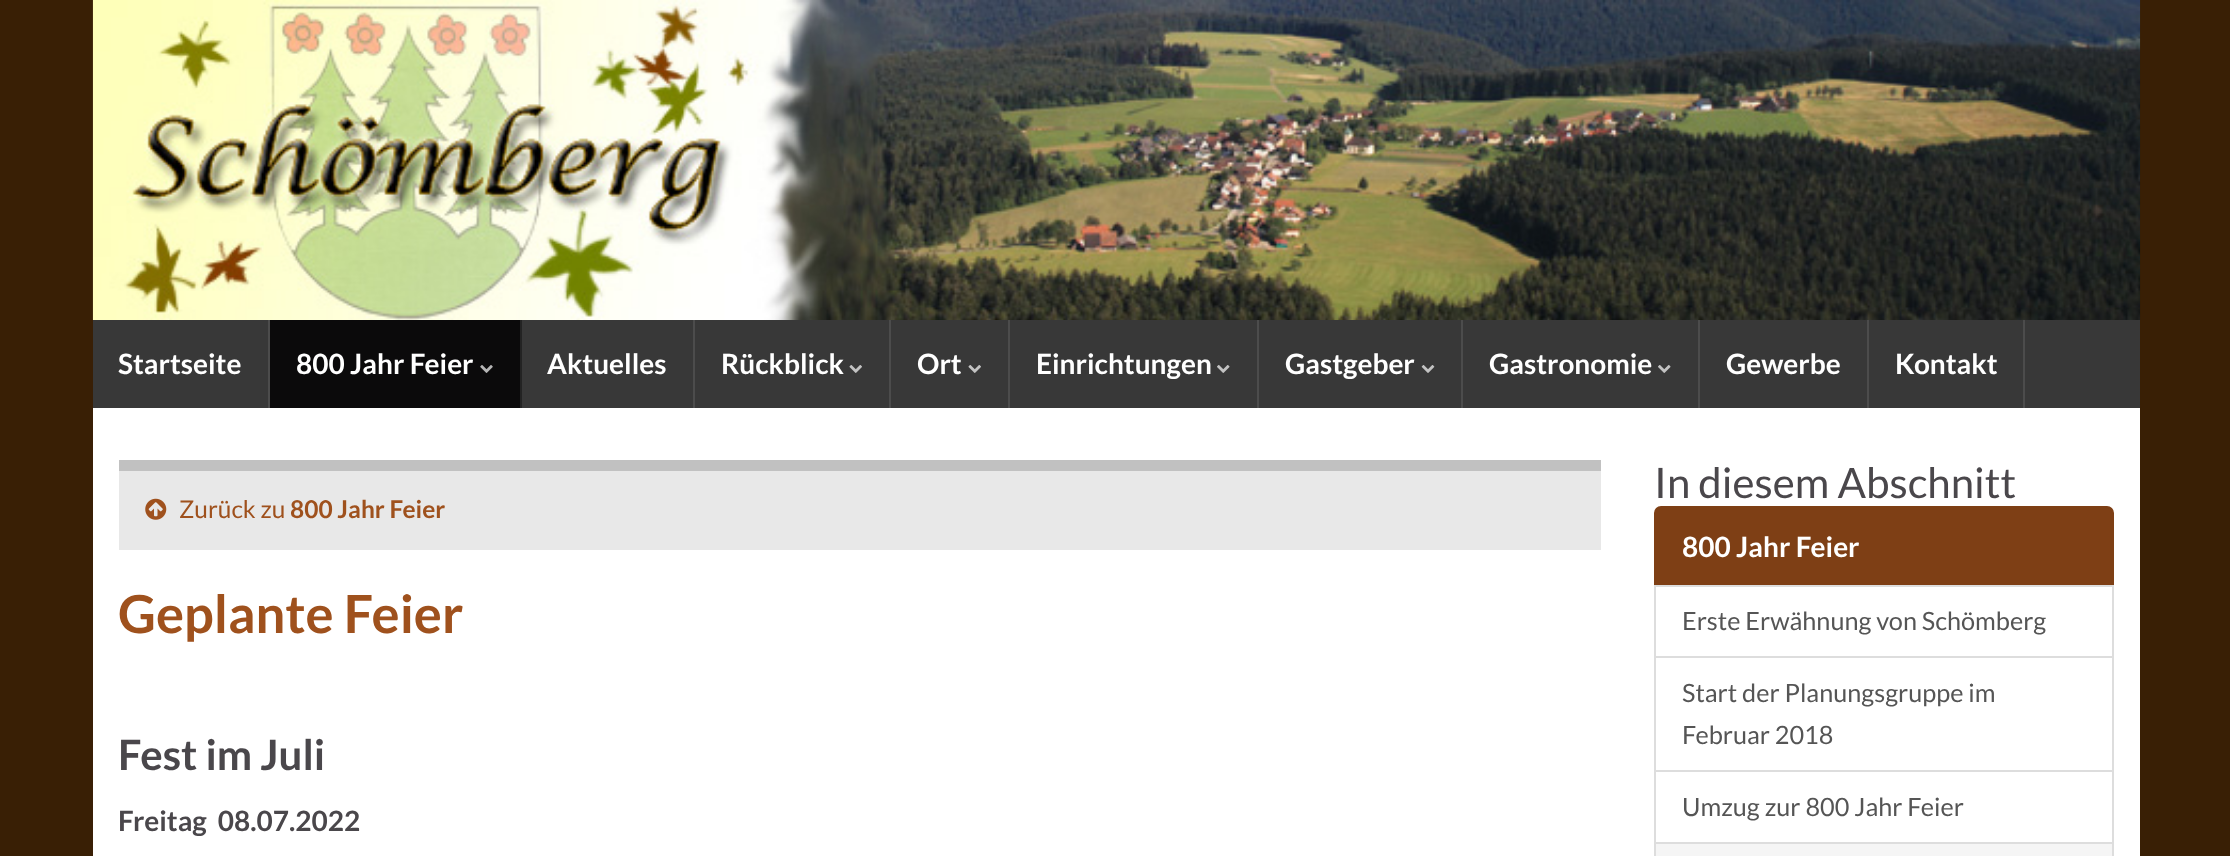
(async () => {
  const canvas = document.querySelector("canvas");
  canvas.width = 2230;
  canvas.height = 856;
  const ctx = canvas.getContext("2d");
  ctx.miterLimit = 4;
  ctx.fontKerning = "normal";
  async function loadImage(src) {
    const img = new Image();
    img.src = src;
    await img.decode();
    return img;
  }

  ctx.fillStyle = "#391f05";
  ctx.fillRect(0, 0, 2230, 856);
  ctx.drawImage(await loadImage("img/1.png"), 92, 0, 2049, 320);
  for (const [x, y, w, h, color] of [
    [93, 320, 2047, 88, "#383838"],
    [268, 320, 2, 88, "#4c4c4c"],
    [270, 320, 250, 88, "#0b0a0b"],
    [520, 320, 2, 88, "#232323"],
  ]) {
    ctx.fillStyle = color;
    ctx.fillRect(x, y, w, h);
  }
  ctx.drawImage(await loadImage("img/2.png"), 480, 365, 13, 8);
  ctx.fillStyle = "#4c4c4c";
  ctx.fillRect(693, 320, 2, 88);
  ctx.fillRect(889, 320, 2, 88);
  ctx.drawImage(await loadImage("img/3.png"), 849, 365, 13, 8);
  ctx.fillRect(1008, 320, 2, 88);
  ctx.drawImage(await loadImage("img/3.png"), 968, 365, 13, 8);
  ctx.fillRect(1257, 320, 2, 88);
  ctx.drawImage(await loadImage("img/4.png"), 1217, 365, 13, 8);
  ctx.fillRect(1461, 320, 2, 88);
  ctx.drawImage(await loadImage("img/5.png"), 1421, 365, 14, 8);
  ctx.fillRect(1698, 320, 2, 88);
  ctx.drawImage(await loadImage("img/4.png"), 1658, 365, 13, 8);
  for (const [x, y, w, h, color] of [
    [1867, 320, 2, 88, "#4c4c4c"],
    [2023, 320, 2, 88, "#4c4c4c"],
    [93, 408, 2047, 448, "#ffffff"],
    [119, 471, 1482, 79, "#e8e8e8"],
    [119, 460, 1482, 11, "#c1c1c1"],
  ]) {
    ctx.fillStyle = color;
    ctx.fillRect(x, y, w, h);
  }
  ctx.drawImage(await loadImage("img/6.png"), 145, 498, 22, 22);
  ctx.fillStyle = "#7e3f15";
  ctx.beginPath();
  ctx.roundRect(1655, 507, 458, 78, [6, 6, 0, 0]);
  ctx.fill();
  ctx.strokeStyle = "#7e3f15";
  ctx.lineWidth = 2;
  ctx.stroke();
  ctx.strokeStyle = "#dddddd";
  ctx.strokeRect(1655, 586, 458, 71);
  ctx.strokeRect(1655, 657, 458, 114);
  ctx.strokeRect(1655, 771, 458, 72);
  ctx.fillStyle = "#f5f5f5";
  ctx.beginPath();
  ctx.rect(1655, 843, 458, 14);
  ctx.fill();
  ctx.stroke();
  ctx.font = "bold 28px Lato";
  ctx.fillStyle = "#ffffff";
  for (const [text, x, y] of [
    ["Startseite", 118, 374],
    ["800 Jahr Feier", 296, 374],
    ["Aktuelles", 547, 374],
    ["Rückblick", 721, 374],
    ["Ort", 917, 374],
    ["Einrichtungen", 1036, 374],
    ["Gastgeber", 1285, 374],
    ["Gastronomie", 1489, 374],
    ["Gewerbe", 1726, 374],
    ["Kontakt", 1895, 374],
  ]) {
    ctx.fillText(text, x, y);
  }
  ctx.font = "24.5px Lato";
  ctx.fillStyle = "#9f511d";
  ctx.fillText("Zurück zu", 179, 518);
  ctx.font = "bold 24.5px Lato";
  ctx.fillText("800 Jahr Feier", 290, 518);
  ctx.font = "bold 52.5px Lato";
  ctx.fillText("Geplante Feier", 118, 633);
  ctx.font = "bold 42px Lato";
  ctx.fillStyle = "#4a474b";
  ctx.fillText("Fest im Juli", 118, 770);
  ctx.font = "bold 28px Lato";
  ctx.fillText("Freitag  08.07.2022", 118, 831);
  ctx.font = "42px Lato";
  ctx.fillText("In diesem Abschnitt", 1654, 498);
  ctx.font = "bold 28px Lato";
  ctx.fillStyle = "#ffffff";
  ctx.fillText("800 Jahr Feier", 1682, 557);
  ctx.font = "25.25px Lato";
  ctx.fillStyle = "#555555";
  for (const [text, x, y] of [
    ["Erste Erwähnung von Schömberg", 1682, 630],
    ["Start der Planungsgruppe im", 1682, 702],
    ["Februar 2018", 1682, 744],
    ["Umzug zur 800 Jahr Feier", 1682, 816],
  ]) {
    ctx.fillText(text, x, y);
  }
})();
